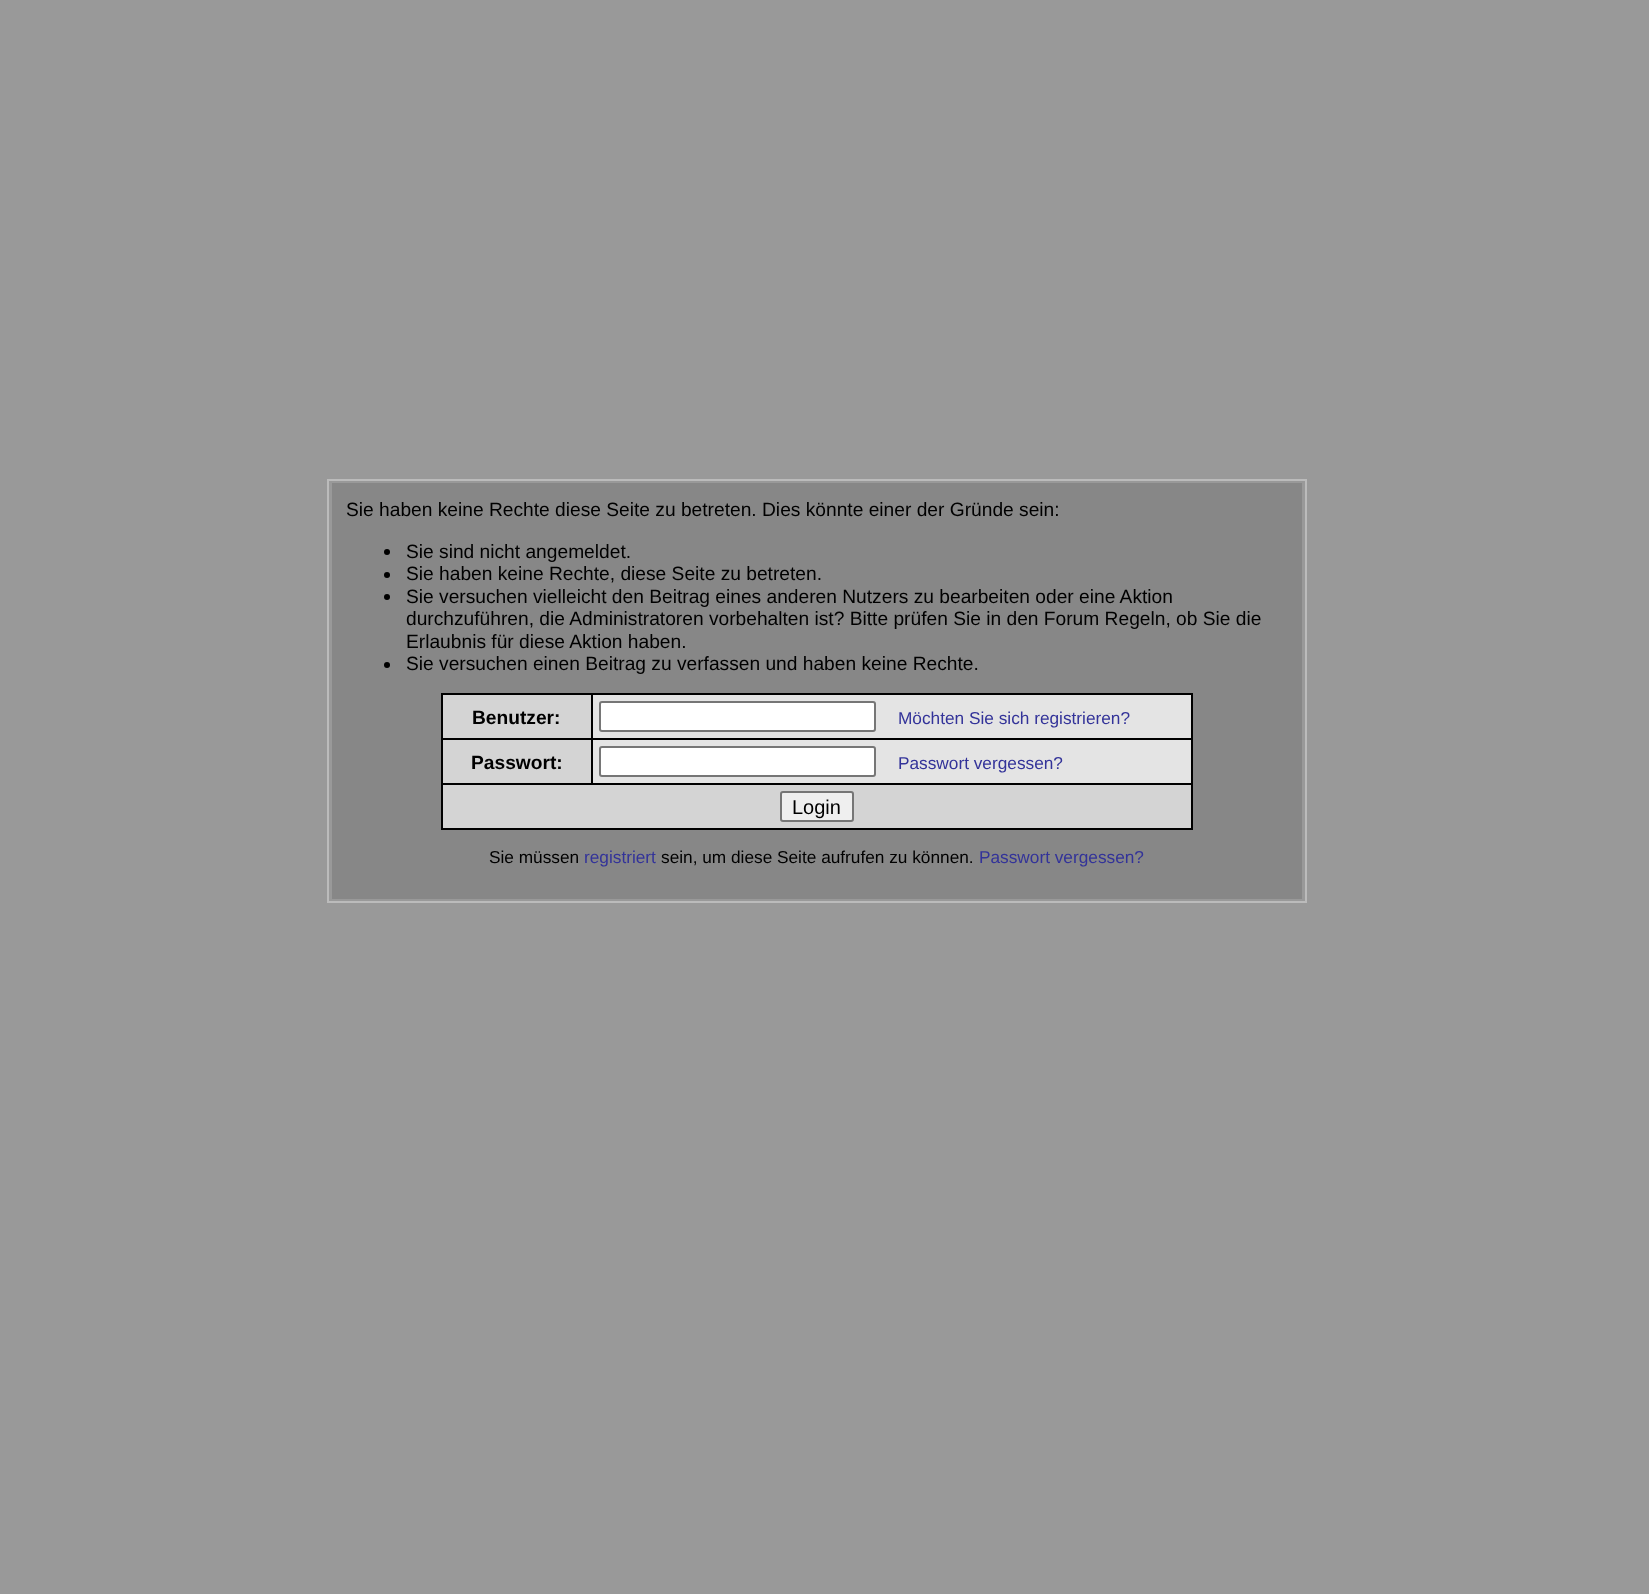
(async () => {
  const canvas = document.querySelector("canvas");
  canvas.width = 1649;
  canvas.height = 1594;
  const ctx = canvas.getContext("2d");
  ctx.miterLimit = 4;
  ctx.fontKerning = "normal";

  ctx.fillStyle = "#999999";
  ctx.fillRect(0, 0, 1649, 1594);
  ctx.strokeStyle = "#bbbbbb";
  ctx.lineWidth = 2;
  ctx.strokeRect(328, 480, 978, 422);
  ctx.fillStyle = "#878787";
  ctx.fillRect(332, 483, 970, 416);
  ctx.fillStyle = "#000000";
  ctx.beginPath();
  ctx.arc(387, 552, 3, 0, Math.PI * 2);
  ctx.fill();
  ctx.beginPath();
  ctx.arc(387, 575, 3, 0, Math.PI * 2);
  ctx.fill();
  ctx.beginPath();
  ctx.arc(387, 597, 3, 0, Math.PI * 2);
  ctx.fill();
  ctx.beginPath();
  ctx.arc(387, 665, 3, 0, Math.PI * 2);
  ctx.fill();
  for (const [x, y, w, h, color] of [
    [441, 693, 752, 137, "#000000"],
    [443, 695, 148, 43, "#d4d4d4"],
    [593, 695, 598, 43, "#e4e4e4"],
  ]) {
    ctx.fillStyle = color;
    ctx.fillRect(x, y, w, h);
  }
  ctx.fillStyle = "#ffffff";
  ctx.beginPath();
  ctx.roundRect(600, 702, 275, 29, 2);
  ctx.fill();
  ctx.strokeStyle = "#767676";
  ctx.stroke();
  ctx.fillStyle = "#d4d4d4";
  ctx.fillRect(443, 740, 148, 43);
  ctx.fillStyle = "#e4e4e4";
  ctx.fillRect(593, 740, 598, 43);
  ctx.fillStyle = "#ffffff";
  ctx.beginPath();
  ctx.roundRect(600, 747, 275, 29, 2);
  ctx.fill();
  ctx.stroke();
  ctx.fillStyle = "#d4d4d4";
  ctx.fillRect(443, 785, 748, 43);
  ctx.fillStyle = "#efefef";
  ctx.beginPath();
  ctx.roundRect(781, 792, 72, 29, 2);
  ctx.fill();
  ctx.stroke();
  ctx.font = "19.2px Liberation Sans";
  ctx.fillStyle = "#000000";
  for (const [text, x, y] of [
    ["Sie haben keine Rechte diese Seite zu betreten. Dies könnte einer der Gründe sein:", 346, 516],
    ["Sie sind nicht angemeldet.", 406, 558],
    ["Sie haben keine Rechte, diese Seite zu betreten.", 406, 580],
    ["Sie versuchen vielleicht den Beitrag eines anderen Nutzers zu bearbeiten oder eine Aktion", 406, 603],
    ["durchzuführen, die Administratoren vorbehalten ist? Bitte prüfen Sie in den Forum Regeln, ob Sie die", 406, 625],
    ["Erlaubnis für diese Aktion haben.", 406, 648],
    ["Sie versuchen einen Beitrag zu verfassen und haben keine Rechte.", 406, 670],
  ]) {
    ctx.fillText(text, x, y);
  }
  ctx.font = "bold 19.2px Liberation Sans";
  ctx.fillText("Benutzer:", 472, 724);
  ctx.font = "17.25px Liberation Sans";
  ctx.fillStyle = "#333399";
  ctx.fillText("Möchten Sie sich registrieren?", 898, 724);
  ctx.font = "bold 19.2px Liberation Sans";
  ctx.fillStyle = "#000000";
  ctx.fillText("Passwort:", 471, 769);
  ctx.font = "17.25px Liberation Sans";
  ctx.fillStyle = "#333399";
  ctx.fillText("Passwort vergessen?", 898, 769);
  ctx.font = "20px Liberation Sans";
  ctx.fillStyle = "#000000";
  ctx.fillText("Login", 792, 814);
  ctx.font = "17.25px Liberation Sans";
  ctx.fillText("Sie müssen", 489, 863);
  ctx.fillStyle = "#333399";
  ctx.fillText("registriert", 584, 863);
  ctx.fillStyle = "#000000";
  ctx.fillText("sein, um diese Seite aufrufen zu können.", 661, 863);
  ctx.fillStyle = "#333399";
  ctx.fillText("Passwort vergessen?", 979, 863);
})();
